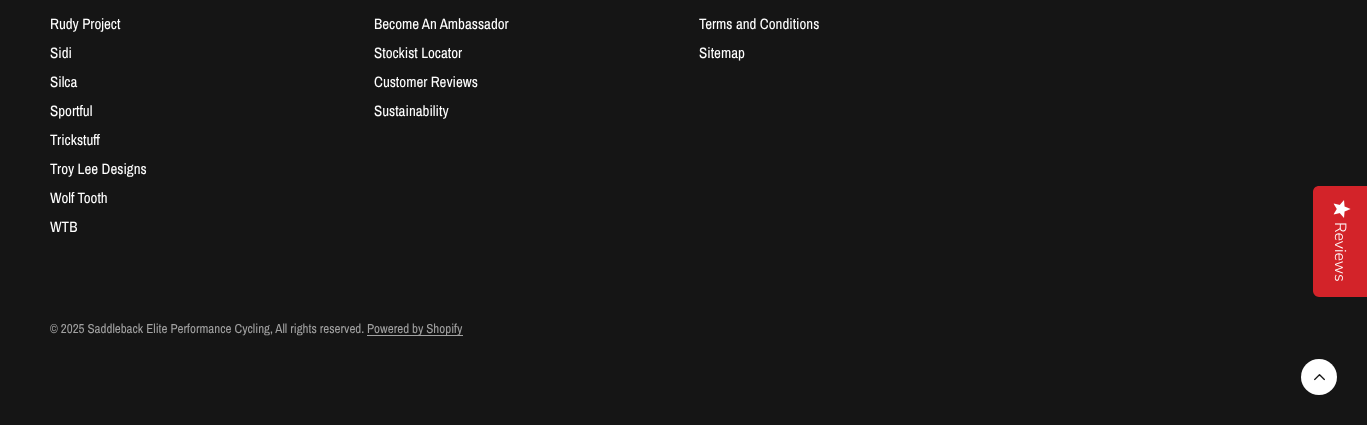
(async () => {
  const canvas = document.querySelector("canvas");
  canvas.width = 1367;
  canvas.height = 425;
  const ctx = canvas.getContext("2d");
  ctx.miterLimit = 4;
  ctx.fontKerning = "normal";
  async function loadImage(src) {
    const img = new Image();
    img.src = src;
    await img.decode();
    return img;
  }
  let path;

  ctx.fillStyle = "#151515";
  ctx.fillRect(0, 0, 1367, 425);
  ctx.fillStyle = "#a1a1a1";
  ctx.fillRect(367, 335, 96, 1);
  ctx.fillStyle = "#d32329";
  path = new Path2D("M1367 186V297H1319C1316 297 1313 294 1313 291V192C1313 188 1316 186 1319 186Z");
  ctx.fill(path);
  ctx.drawImage(await loadImage("img/1.png"), 1333, 200, 18, 18);
  ctx.fillStyle = "#ffffff";
  ctx.beginPath();
  ctx.arc(1319, 377, 18, 0, Math.PI * 2);
  ctx.fill();
  ctx.drawImage(await loadImage("img/2.png"), 1314, 374, 11, 7);
  ctx.font = "15px Archivo Narrow";
  for (const [text, x, y] of [
    ["Rudy Project", 50, 29],
    ["Sidi", 50, 58],
    ["Silca", 50, 87],
    ["Sportful", 50, 116],
    ["Trickstuff", 50, 145],
    ["Troy Lee Designs", 50, 174],
    ["Wolf Tooth", 50, 203],
    ["WTB", 50, 232],
    ["Become An Ambassador", 374, 29],
    ["Stockist Locator", 374, 58],
    ["Customer Reviews", 374, 87],
    ["Sustainability", 374, 116],
    ["Terms and Conditions", 699, 29],
    ["Sitemap", 699, 58],
  ]) {
    ctx.fillText(text, x, y);
  }
  ctx.font = "13px Archivo Narrow";
  ctx.fillStyle = "#a1a1a1";
  ctx.fillText("© 2025 Saddleback Elite Performance Cycling, All rights reserved.", 50, 333);
  ctx.fillText("Powered by Shopify", 367, 333);
  ctx.font = "300 16px Nunito Sans";
  ctx.fillStyle = "#ffffff";
  ctx.save();
  ctx.translate(1335, 222);
  ctx.rotate(90 * Math.PI / 180);
  ctx.fillText("Reviews", 0, 0);
  ctx.restore();
})();
